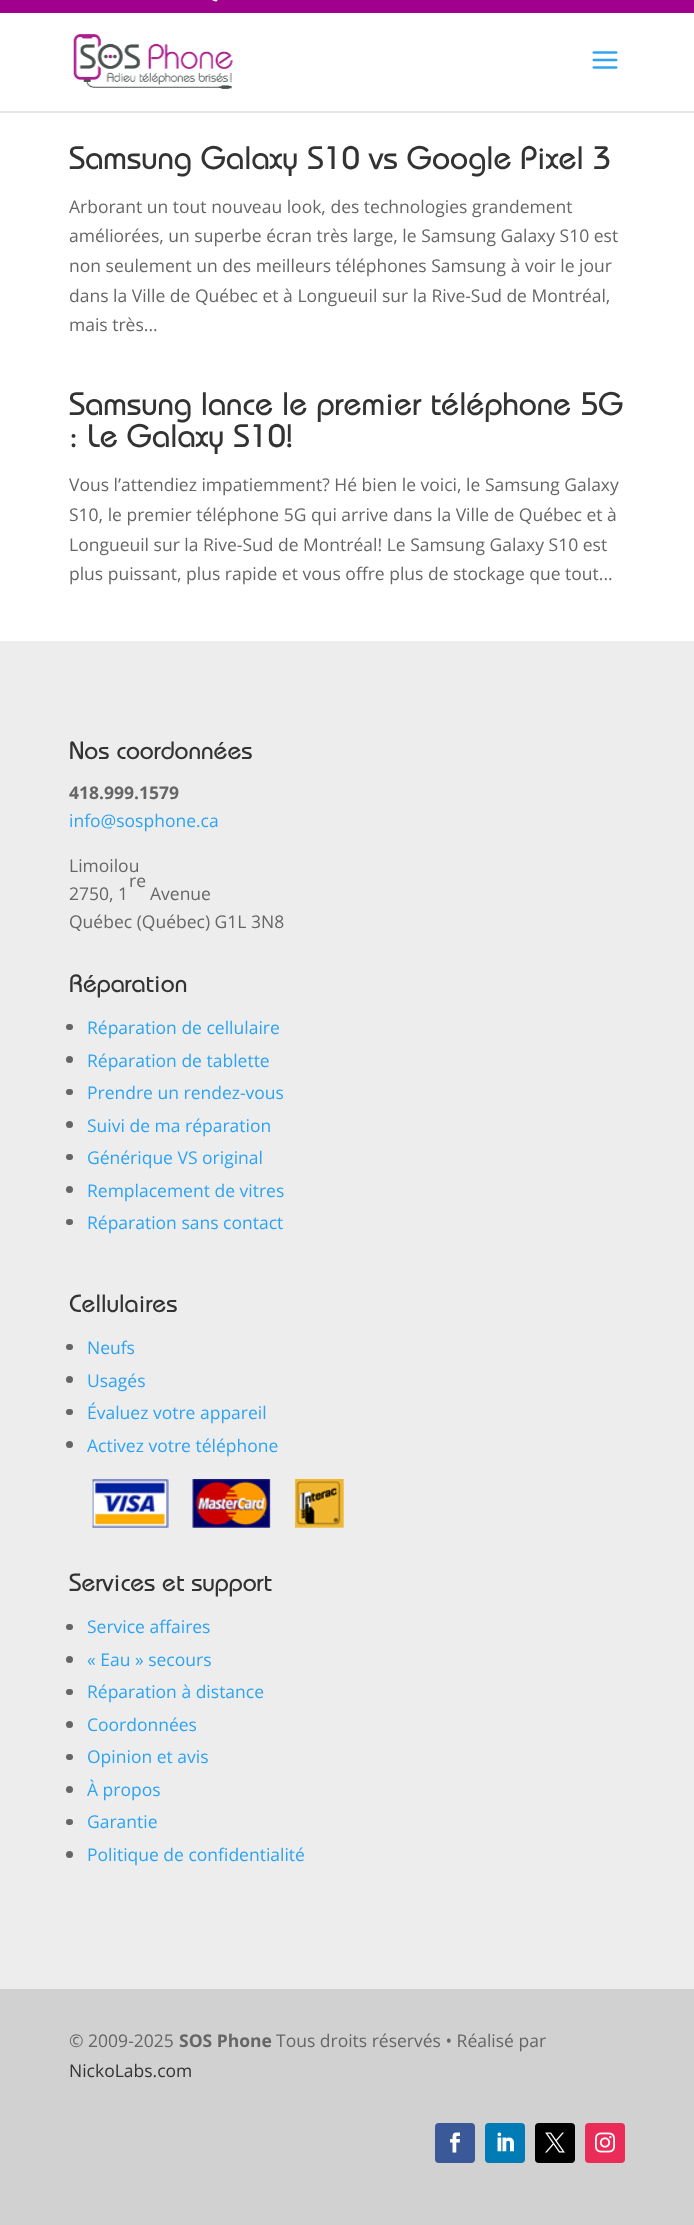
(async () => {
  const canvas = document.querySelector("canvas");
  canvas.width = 694;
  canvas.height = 2225;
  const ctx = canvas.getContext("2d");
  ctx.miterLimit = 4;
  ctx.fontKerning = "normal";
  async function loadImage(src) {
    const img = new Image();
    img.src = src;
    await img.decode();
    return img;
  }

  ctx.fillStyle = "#ffffff";
  ctx.fillRect(0, 0, 694, 2225);
  ctx.fillStyle = "#a1008f";
  ctx.fillRect(0, 0, 694, 13);
  ctx.drawImage(await loadImage("img/1.png"), 212, 0, 6, 2);
  ctx.fillStyle = "#e6e6e6";
  ctx.fillRect(0, 111, 694, 2);
  ctx.drawImage(await loadImage("img/2.png"), 73, 34, 160, 55);
  ctx.drawImage(await loadImage("img/3.png"), 592, 51, 26, 18);
  ctx.fillStyle = "#ededed";
  ctx.fillRect(0, 641, 694, 1348);
  ctx.fillStyle = "#666666";
  ctx.beginPath();
  ctx.roundRect(66, 1024, 7, 6, 3);
  ctx.fill();
  ctx.beginPath();
  ctx.arc(69.5, 1059.5, 3.5, 0, Math.PI * 2);
  ctx.fill();
  ctx.beginPath();
  ctx.roundRect(66, 1089, 7, 6, 3);
  ctx.fill();
  ctx.beginPath();
  ctx.arc(69.5, 1124.5, 3.5, 0, Math.PI * 2);
  ctx.fill();
  ctx.beginPath();
  ctx.roundRect(66, 1154, 7, 6, 3);
  ctx.fill();
  ctx.beginPath();
  ctx.arc(69.5, 1189.5, 3.5, 0, Math.PI * 2);
  ctx.fill();
  ctx.beginPath();
  ctx.roundRect(66, 1219, 7, 6, 3);
  ctx.fill();
  ctx.beginPath();
  ctx.roundRect(66, 1344, 7, 6, 3);
  ctx.fill();
  ctx.beginPath();
  ctx.arc(69.5, 1379.5, 3.5, 0, Math.PI * 2);
  ctx.fill();
  ctx.beginPath();
  ctx.roundRect(66, 1409, 7, 6, 3);
  ctx.fill();
  ctx.beginPath();
  ctx.arc(69.5, 1444.5, 3.5, 0, Math.PI * 2);
  ctx.fill();
  ctx.drawImage(await loadImage("img/4.png"), 92, 1479, 252, 49);
  ctx.beginPath();
  ctx.roundRect(66, 1624, 7, 6, 3);
  ctx.fill();
  ctx.beginPath();
  ctx.arc(69.5, 1659.5, 3.5, 0, Math.PI * 2);
  ctx.fill();
  ctx.beginPath();
  ctx.roundRect(66, 1689, 7, 6, 3);
  ctx.fill();
  ctx.beginPath();
  ctx.arc(69.5, 1724.5, 3.5, 0, Math.PI * 2);
  ctx.fill();
  ctx.beginPath();
  ctx.roundRect(66, 1754, 7, 6, 3);
  ctx.fill();
  ctx.beginPath();
  ctx.arc(69.5, 1789.5, 3.5, 0, Math.PI * 2);
  ctx.fill();
  ctx.beginPath();
  ctx.roundRect(66, 1819, 7, 6, 3);
  ctx.fill();
  ctx.beginPath();
  ctx.arc(69.5, 1854.5, 3.5, 0, Math.PI * 2);
  ctx.fill();
  ctx.fillStyle = "#d1d1d1";
  ctx.fillRect(0, 1989, 694, 236);
  ctx.fillStyle = "#3b5998";
  ctx.beginPath();
  ctx.roundRect(435, 2123, 40, 40, 4);
  ctx.fill();
  ctx.drawImage(await loadImage("img/5.png"), 450, 2132, 10, 21);
  ctx.fillStyle = "#007bb6";
  ctx.beginPath();
  ctx.roundRect(485, 2123, 40, 40, 4);
  ctx.fill();
  ctx.drawImage(await loadImage("img/6.png"), 497, 2132, 17, 20);
  ctx.fillStyle = "#000000";
  ctx.beginPath();
  ctx.roundRect(535, 2123, 40, 40, 4);
  ctx.fill();
  ctx.drawImage(await loadImage("img/7.png"), 545, 2132, 20, 21);
  ctx.fillStyle = "#ea2c59";
  ctx.beginPath();
  ctx.roundRect(585, 2123, 40, 40, 4);
  ctx.fill();
  ctx.drawImage(await loadImage("img/8.png"), 595, 2132, 20, 21);
  ctx.font = "500 32.5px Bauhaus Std";
  ctx.fillStyle = "#333333";
  ctx.fillText("Samsung Galaxy S10 vs Google Pixel 3", 69, 169);
  ctx.font = "17.5px Open Sans";
  ctx.fillStyle = "#666666";
  for (const [text, x, y] of [
    ["Arborant un tout nouveau look, des technologies grandement", 69, 213],
    ["améliorées, un superbe écran très large, le Samsung Galaxy S10 est", 69, 242],
    ["non seulement un des meilleurs téléphones Samsung à voir le jour", 69, 272],
    ["dans la Ville de Québec et à Longueuil sur la Rive-Sud de Montréal,", 69, 302],
    ["mais très...", 69, 331],
  ]) {
    ctx.fillText(text, x, y);
  }
  ctx.font = "500 32.5px Bauhaus Std";
  ctx.fillStyle = "#333333";
  ctx.fillText("Samsung lance le premier téléphone 5G", 69, 415);
  ctx.fillText(": Le Galaxy S10!", 69, 447);
  ctx.font = "17.5px Open Sans";
  ctx.fillStyle = "#666666";
  for (const [text, x, y] of [
    ["Vous l’attendiez impatiemment? Hé bien le voici, le Samsung Galaxy", 69, 491],
    ["S10, le premier téléphone 5G qui arrive dans la Ville de Québec et à", 69, 521],
    ["Longueuil sur la Rive-Sud de Montréal! Le Samsung Galaxy S10 est", 69, 551],
    ["plus puissant, plus rapide et vous offre plus de stockage que tout...", 69, 580],
  ]) {
    ctx.fillText(text, x, y);
  }
  ctx.font = "500 25px Bauhaus Std";
  ctx.fillStyle = "#333333";
  ctx.fillText("Nos coordonnées", 69, 759);
  ctx.font = "bold 17.5px Open Sans";
  ctx.fillStyle = "#666666";
  ctx.fillText("418.999.1579", 69, 799);
  ctx.font = "17.5px Open Sans";
  ctx.fillStyle = "#2ea3f2";
  ctx.fillText("info@sosphone.ca", 69, 827);
  ctx.fillStyle = "#666666";
  for (const [text, x, y] of [
    ["Limoilou", 69, 872],
    ["re", 129, 887],
    ["2750, 1", 69, 900],
    ["Avenue", 150, 900],
    ["Québec (Québec) G1L 3N8", 69, 928],
  ]) {
    ctx.fillText(text, x, y);
  }
  ctx.font = "500 25px Bauhaus Std";
  ctx.fillStyle = "#333333";
  ctx.fillText("Réparation", 69, 992);
  ctx.font = "17.5px Open Sans";
  ctx.fillStyle = "#2ea3f2";
  for (const [text, x, y] of [
    ["Réparation de cellulaire", 87, 1034],
    ["Réparation de tablette", 87, 1067],
    ["Prendre un rendez-vous", 87, 1099],
    ["Suivi de ma réparation", 87, 1132],
    ["Générique VS original", 87, 1164],
    ["Remplacement de vitres", 87, 1197],
    ["Réparation sans contact", 87, 1229],
  ]) {
    ctx.fillText(text, x, y);
  }
  ctx.font = "500 25px Bauhaus Std";
  ctx.fillStyle = "#333333";
  ctx.fillText("Cellulaires", 69, 1312);
  ctx.font = "17.5px Open Sans";
  ctx.fillStyle = "#2ea3f2";
  for (const [text, x, y] of [
    ["Neufs", 87, 1354],
    ["Usagés", 87, 1387],
    ["Évaluez votre appareil", 87, 1419],
    ["Activez votre téléphone", 87, 1452],
  ]) {
    ctx.fillText(text, x, y);
  }
  ctx.font = "500 25px Bauhaus Std";
  ctx.fillStyle = "#333333";
  ctx.fillText("Services et support", 69, 1591);
  ctx.font = "17.5px Open Sans";
  ctx.fillStyle = "#2ea3f2";
  for (const [text, x, y] of [
    ["Service affaires", 87, 1633],
    ["« Eau » secours", 87, 1666],
    ["Réparation à distance", 87, 1698],
    ["Coordonnées", 87, 1731],
    ["Opinion et avis", 87, 1763],
    ["À propos", 87, 1796],
    ["Garantie", 87, 1828],
    ["Politique de confidentialité", 87, 1861],
  ]) {
    ctx.fillText(text, x, y);
  }
  ctx.fillStyle = "#666666";
  ctx.fillText("© 2009-2025", 69, 2047);
  ctx.font = "bold 17.5px Open Sans";
  ctx.fillText("SOS Phone", 179, 2047);
  ctx.font = "17.5px Open Sans";
  ctx.fillText("Tous droits réservés • Réalisé par", 276, 2047);
  ctx.fillStyle = "#333333";
  ctx.fillText("NickoLabs.com", 69, 2077);
})();
